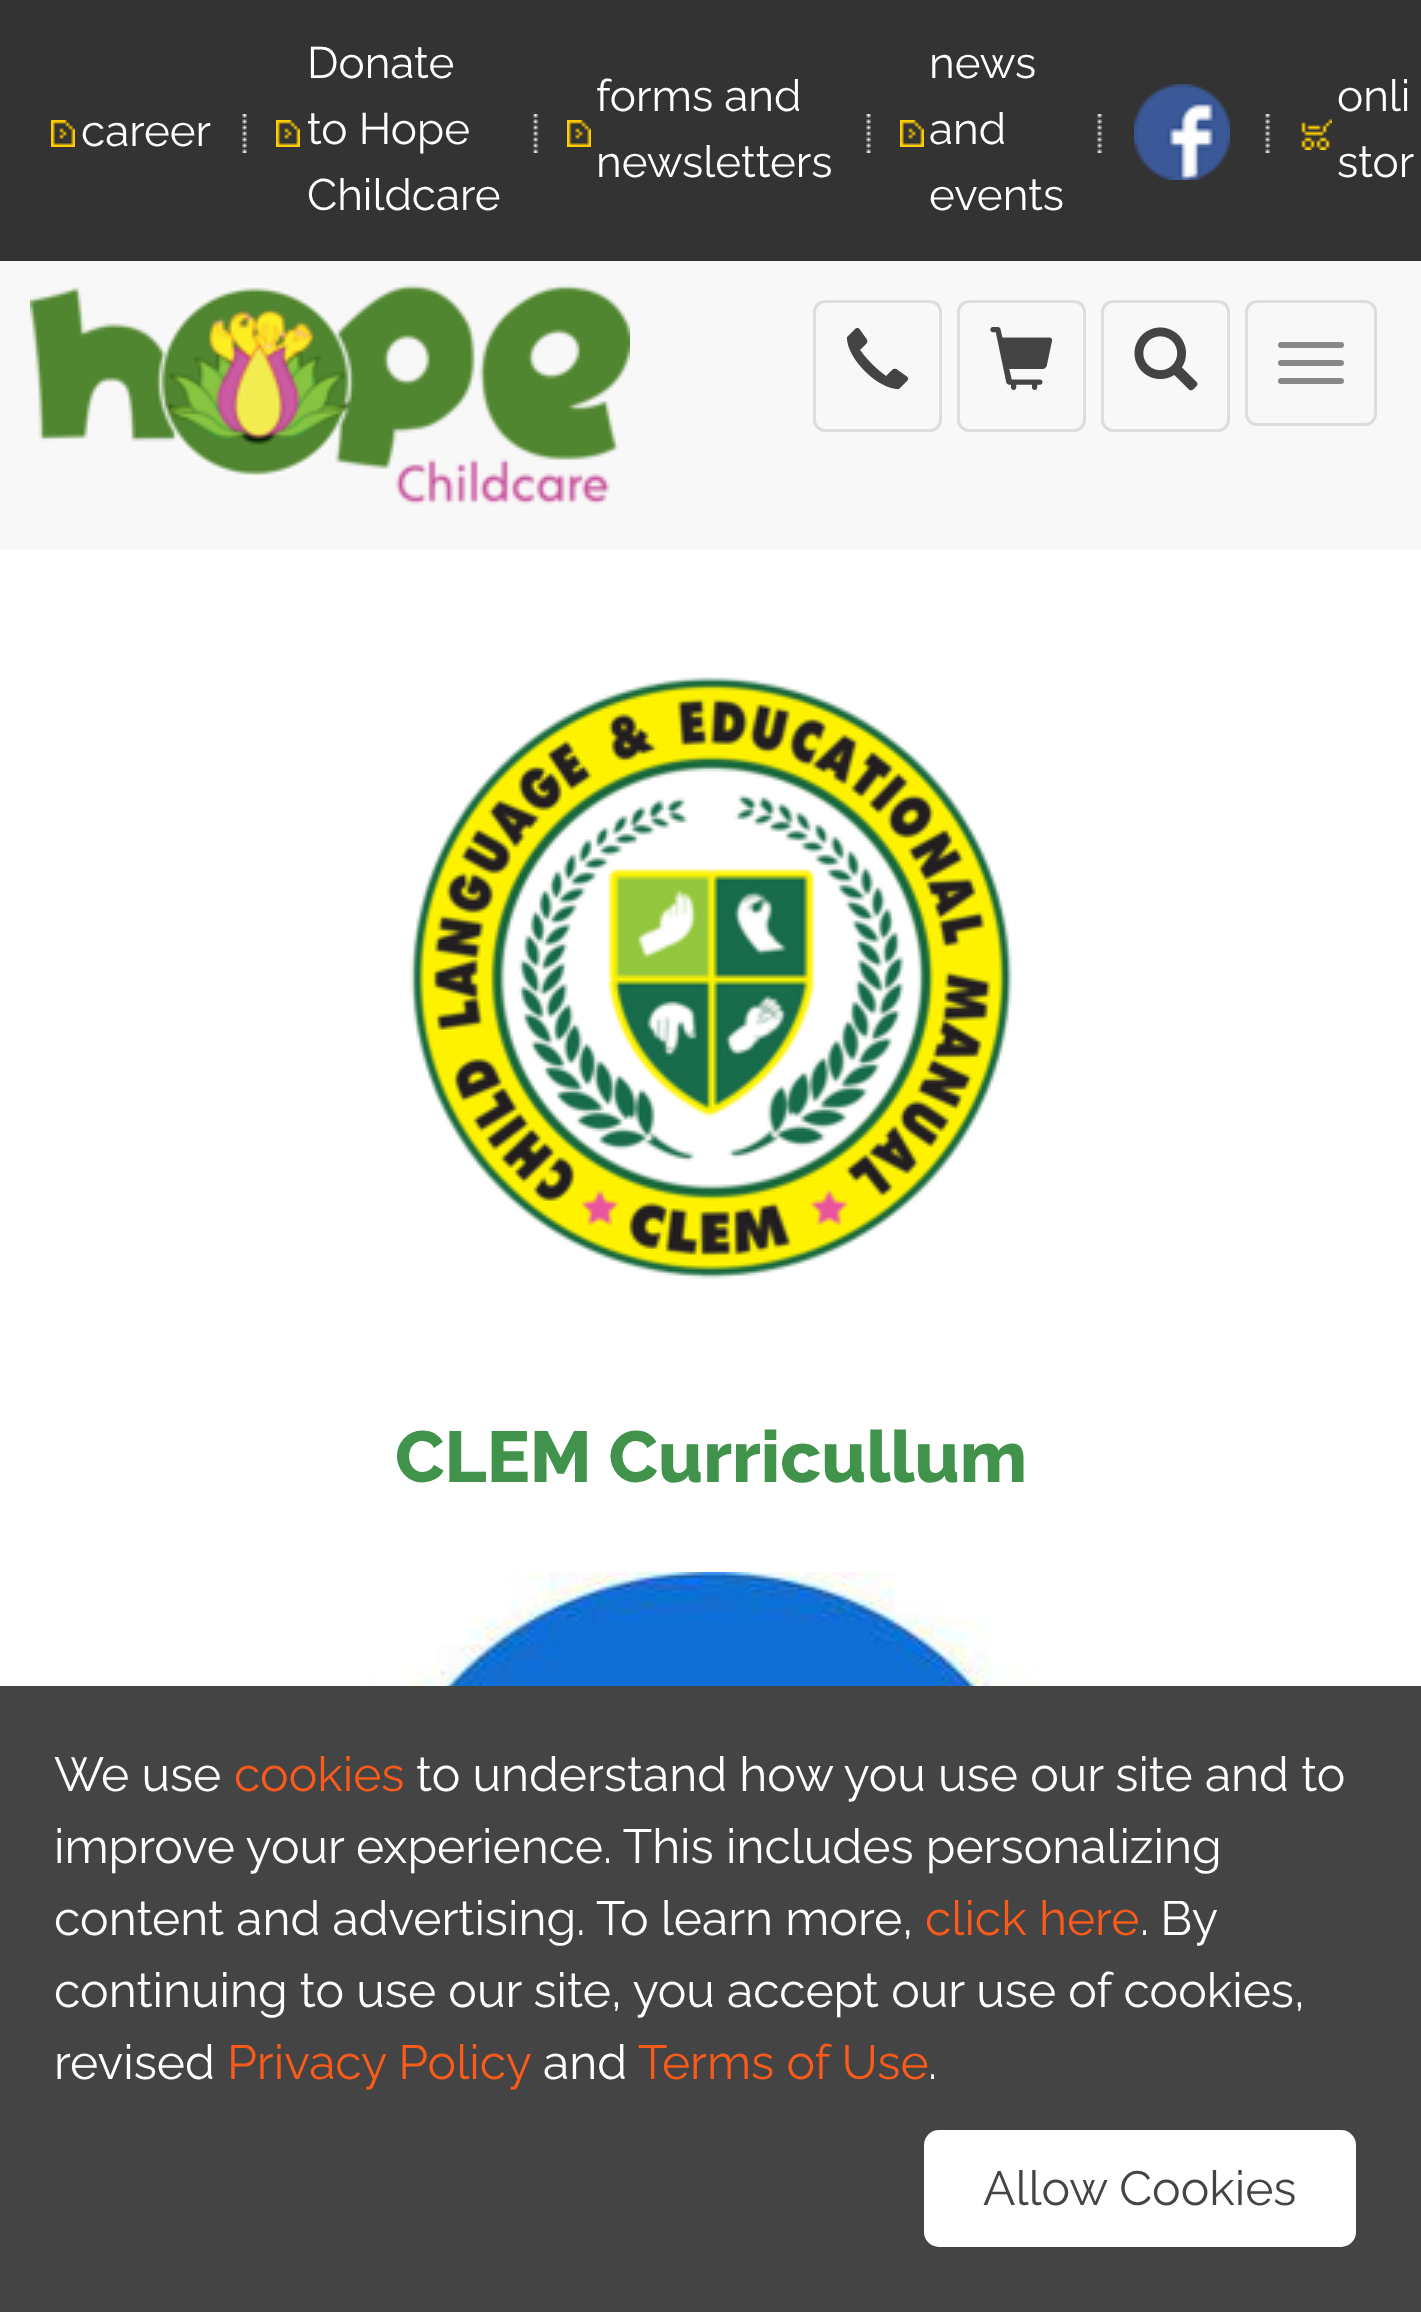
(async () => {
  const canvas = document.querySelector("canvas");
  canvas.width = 1421;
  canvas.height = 2312;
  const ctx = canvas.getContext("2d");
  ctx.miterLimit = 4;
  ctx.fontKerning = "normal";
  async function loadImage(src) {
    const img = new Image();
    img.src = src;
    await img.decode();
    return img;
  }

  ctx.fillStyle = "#ffffff";
  ctx.fillRect(0, 0, 1421, 2312);
  ctx.fillStyle = "#333333";
  ctx.fillRect(0, 0, 1421, 261);
  ctx.drawImage(await loadImage("img/1.png"), 51, 120, 24, 27);
  ctx.drawImage(await loadImage("img/2.png"), 242, 114, 5, 39);
  ctx.drawImage(await loadImage("img/3.png"), 276, 120, 24, 27);
  ctx.drawImage(await loadImage("img/4.png"), 533, 114, 6, 39);
  ctx.drawImage(await loadImage("img/5.png"), 567, 120, 24, 27);
  ctx.drawImage(await loadImage("img/2.png"), 866, 114, 5, 39);
  ctx.drawImage(await loadImage("img/1.png"), 900, 120, 24, 27);
  ctx.drawImage(await loadImage("img/4.png"), 1097, 114, 6, 39);
  ctx.drawImage(await loadImage("img/6.png"), 1134, 84, 96, 96);
  ctx.drawImage(await loadImage("img/4.png"), 1265, 114, 6, 39);
  ctx.drawImage(await loadImage("img/7.png"), 1301, 119, 31, 31);
  ctx.fillStyle = "#f8f8f8";
  ctx.fillRect(0, 261, 1421, 288);
  ctx.drawImage(await loadImage("img/8.png"), 30, 284, 600, 221);
  ctx.beginPath();
  ctx.roundRect(814.5, 301.5, 126, 129, 10.5);
  ctx.strokeStyle = "#dddddd";
  ctx.lineWidth = 3;
  ctx.stroke();
  ctx.drawImage(await loadImage("img/9.png"), 846, 327, 63, 63);
  ctx.beginPath();
  ctx.roundRect(958.5, 301.5, 126, 129, 10.5);
  ctx.stroke();
  ctx.drawImage(await loadImage("img/10.png"), 990, 327, 63, 63);
  ctx.beginPath();
  ctx.roundRect(1102.5, 301.5, 126, 129, 10.5);
  ctx.stroke();
  ctx.drawImage(await loadImage("img/11.png"), 1134, 327, 64, 64);
  ctx.beginPath();
  ctx.roundRect(1246.5, 301.5, 129, 123, 10.5);
  ctx.stroke();
  ctx.fillStyle = "#888888";
  ctx.beginPath();
  ctx.roundRect(1278, 342, 66, 6, 3);
  ctx.fill();
  ctx.beginPath();
  ctx.roundRect(1278, 360, 66, 6, 3);
  ctx.fill();
  ctx.beginPath();
  ctx.roundRect(1278, 378, 66, 6, 3);
  ctx.fill();
  ctx.drawImage(await loadImage("img/12.png"), 410, 677, 602, 602);
  ctx.drawImage(await loadImage("img/13.png"), 366, 1572, 690, 114);
  ctx.fillStyle = "#444444";
  ctx.fillRect(0, 1686, 1421, 626);
  ctx.fillStyle = "#ffffff";
  ctx.beginPath();
  ctx.roundRect(924, 2130, 432, 117, 15);
  ctx.fill();
  ctx.font = "44px Raleway";
  for (const [text, x, y] of [
    ["career", 81, 146],
    ["Donate", 307, 78],
    ["to Hope", 307, 144],
    ["Childcare", 307, 210],
    ["forms and", 596, 111],
    ["newsletters", 596, 177],
    ["news", 929, 78],
    ["and", 929, 144],
    ["events", 929, 210],
    ["onli", 1337, 111],
    ["stor", 1337, 177],
  ]) {
    ctx.fillText(text, x, y);
  }
  ctx.font = "800 72px Raleway";
  ctx.fillStyle = "#41924b";
  ctx.fillText("CLEM Curricullum", 395, 1482);
  ctx.font = "48px Raleway";
  ctx.fillStyle = "#ffffff";
  ctx.fillText("We use", 54, 1791);
  ctx.fillStyle = "#fa5b1a";
  ctx.fillText("cookies", 234, 1791);
  ctx.fillStyle = "#ffffff";
  for (const [text, x, y] of [
    ["to understand how you use our site and to", 416, 1791],
    ["improve your experience. This includes personalizing", 54, 1863],
    ["content and advertising. To learn more,", 54, 1935],
  ]) {
    ctx.fillText(text, x, y);
  }
  ctx.fillStyle = "#fa5b1a";
  ctx.fillText("click here", 925, 1935);
  ctx.wordSpacing = "-1px";
  ctx.fillStyle = "#ffffff";
  ctx.fillText(". By", 1140, 1935);
  ctx.wordSpacing = "0px";
  ctx.fillText("continuing to use our site, you accept our use of cookies,", 54, 2007);
  ctx.fillText("revised", 54, 2079);
  ctx.fillStyle = "#fa5b1a";
  ctx.fillText("Privacy Policy", 227, 2079);
  ctx.fillStyle = "#ffffff";
  ctx.fillText("and", 543, 2079);
  ctx.fillStyle = "#fa5b1a";
  ctx.fillText("Terms of Use", 638, 2079);
  ctx.fillStyle = "#ffffff";
  ctx.fillText(".", 928, 2079);
  ctx.fillStyle = "#444444";
  ctx.fillText("Allow Cookies", 983, 2205);
})();
